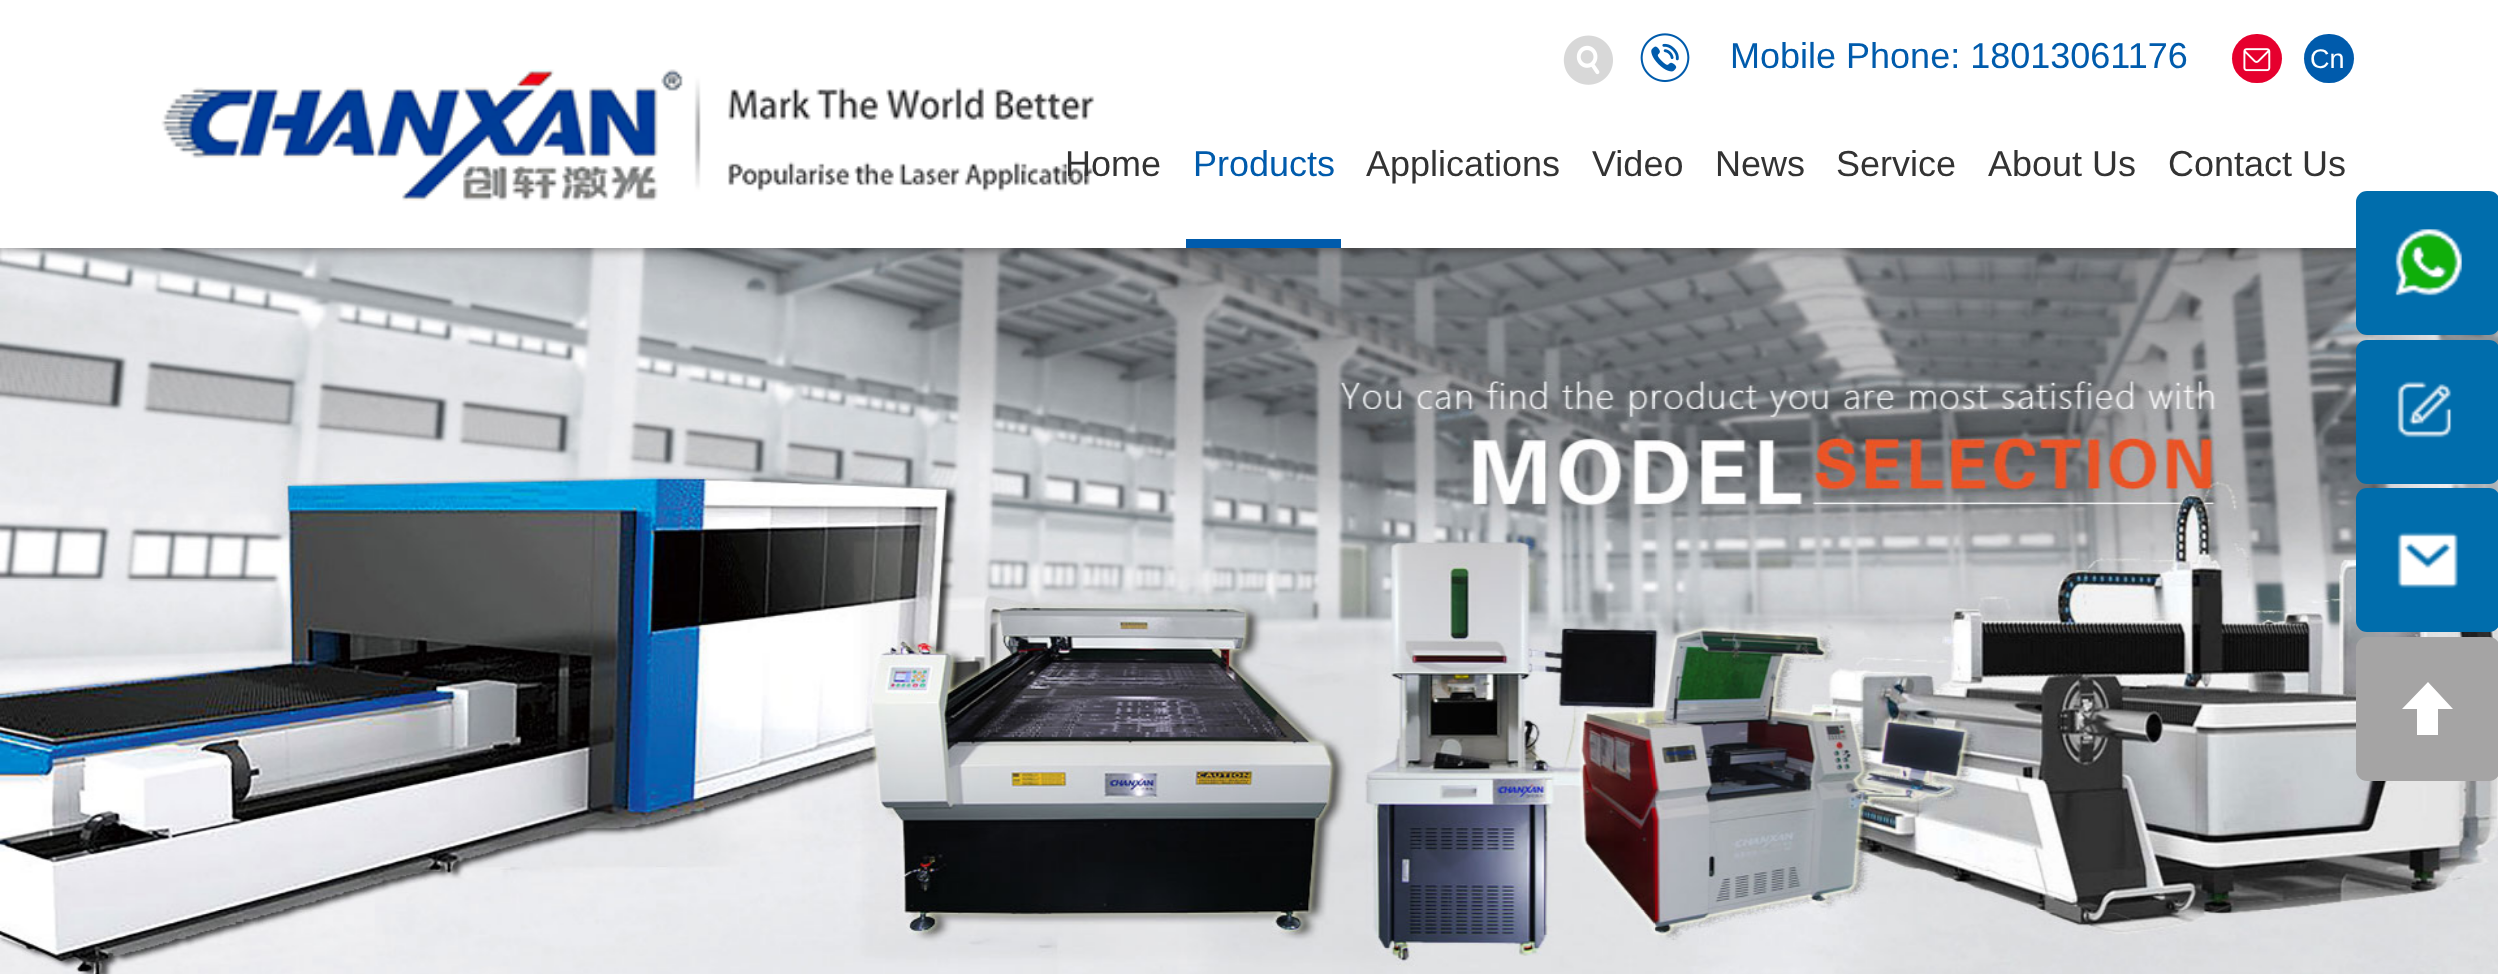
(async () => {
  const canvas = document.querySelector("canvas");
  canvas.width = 2498;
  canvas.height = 974;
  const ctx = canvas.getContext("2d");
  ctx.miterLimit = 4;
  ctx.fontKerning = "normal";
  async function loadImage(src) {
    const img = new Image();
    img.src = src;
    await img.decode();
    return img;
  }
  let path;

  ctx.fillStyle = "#ffffff";
  ctx.fillRect(0, 0, 2498, 974);
  ctx.drawImage(await loadImage("img/1.png"), 1563, 35, 50, 50);
  ctx.drawImage(await loadImage("img/2.png"), 1640, 33, 50, 50);
  ctx.fillStyle = "#e6002e";
  ctx.beginPath();
  ctx.roundRect(2232, 34, 50, 49, 24.5);
  ctx.fill();
  ctx.drawImage(await loadImage("img/3.png"), 2243, 48, 28, 24);
  ctx.fillStyle = "#005bac";
  ctx.beginPath();
  ctx.roundRect(2304, 34, 50, 49, 24.5);
  ctx.fill();
  ctx.drawImage(await loadImage("img/4.png"), 161, 69, 934, 132);
  ctx.fillRect(1186, 239, 155, 9);
  ctx.drawImage(await loadImage("img/8.png"), 0, 248, 2498, 726);
  ctx.fillStyle = "#006dac";
  ctx.beginPath();
  ctx.roundRect(2356, 191, 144, 144, 11);
  ctx.fill();
  ctx.drawImage(await loadImage("img/5.png"), 2395, 229, 67, 67);
  ctx.beginPath();
  ctx.roundRect(2356, 340, 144, 144, 11);
  ctx.fill();
  ctx.drawImage(await loadImage("img/6.png"), 2397, 381, 55, 57);
  ctx.beginPath();
  ctx.roundRect(2356, 488, 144, 144, 11);
  ctx.fill();
  ctx.drawImage(await loadImage("img/7.png"), 2397, 532, 61, 56);
  ctx.fillStyle = "#a5a4a4";
  ctx.beginPath();
  ctx.roundRect(2356, 637, 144, 144, 11);
  ctx.fill();
  ctx.fillStyle = "#ffffff";
  path = new Path2D("M2417 709V735H2438V709H2453L2428 682L2402 709Z");
  ctx.fill(path);
  ctx.font = "36px Liberation Sans";
  ctx.fillStyle = "#005bac";
  ctx.fillText("Mobile Phone: 18013061176", 1730, 68);
  ctx.font = "27px Liberation Sans";
  ctx.fillStyle = "#ffffff";
  ctx.fillText("Cn", 2310, 68);
  ctx.font = "36px Liberation Sans";
  ctx.fillStyle = "#333333";
  ctx.fillText("Home", 1065, 176);
  ctx.fillStyle = "#005bac";
  ctx.fillText("Products", 1193, 176);
  ctx.fillStyle = "#333333";
  for (const [text, x, y] of [
    ["Applications", 1366, 176],
    ["Video", 1592, 176],
    ["News", 1715, 176],
    ["Service", 1836, 176],
    ["About Us", 1988, 176],
    ["Contact Us", 2168, 176],
  ]) {
    ctx.fillText(text, x, y);
  }
})();
